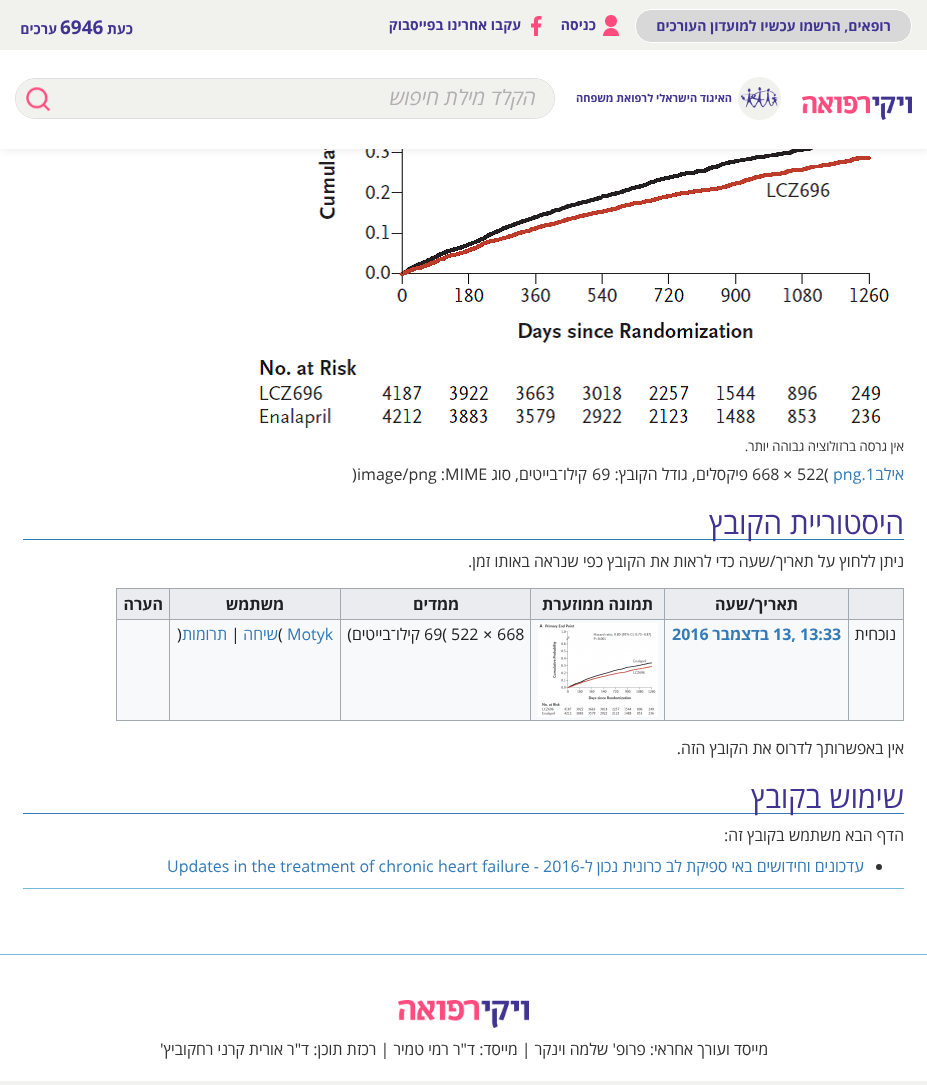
(async () => {
  const canvas = document.querySelector("canvas");
  canvas.width = 927;
  canvas.height = 1085;
  const ctx = canvas.getContext("2d");
  ctx.miterLimit = 4;
  ctx.fontKerning = "normal";
  async function loadImage(src) {
    const img = new Image();
    img.src = src;
    await img.decode();
    return img;
  }

  ctx.fillStyle = "#ffffff";
  ctx.fillRect(0, 0, 927, 1085);
  ctx.drawImage(await loadImage("img/6.png"), 260, 149, 629, 279);
  ctx.fillStyle = "rgba(0, 0, 0, 0.1)";
  ctx.filter = "blur(5px)";
  ctx.beginPath();
  ctx.rect(2, 0, 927, 149);
  ctx.fill();
  ctx.filter = "none";
  ctx.fillStyle = "#f1f1ed";
  ctx.fillRect(0, 0, 927, 50);
  ctx.fillStyle = "#d8d8d8";
  ctx.beginPath();
  ctx.roundRect(635.5, 9.5, 276, 33, 15.5);
  ctx.fill();
  ctx.strokeStyle = "#ffffff";
  ctx.stroke();
  ctx.drawImage(await loadImage("img/1.png"), 603, 15, 16, 21);
  ctx.drawImage(await loadImage("img/2.png"), 531, 16, 11, 20);
  ctx.fillStyle = "#ffffff";
  ctx.fillRect(0, 50, 927, 99);
  ctx.drawImage(await loadImage("img/3.png"), 802, 96, 110, 24);
  ctx.drawImage(await loadImage("img/4.png"), 738, 77, 43, 43);
  ctx.beginPath();
  ctx.roundRect(15.5, 78.5, 539, 40, 20);
  ctx.strokeStyle = "#dedede";
  ctx.stroke();
  ctx.fillStyle = "#f1f1ed";
  ctx.beginPath();
  ctx.roundRect(16, 79, 538, 39, 19.5);
  ctx.fill();
  ctx.drawImage(await loadImage("img/5.png"), 26, 87, 25, 25);
  for (const [x, y, w, h, color] of [
    [23, 539, 881, 1, "#337ab7"],
    [117, 620, 786, 100, "#f8f9fa"],
    [116, 588, 788, 1, "#a2a9b1"],
    [903, 588, 1, 133, "#a2a9b1"],
    [116, 720, 788, 1, "#a2a9b1"],
    [116, 588, 1, 133, "#a2a9b1"],
    [849, 589, 54, 30, "#eaecf0"],
    [665, 589, 183, 30, "#eaecf0"],
    [116, 619, 54, 1, "#a2a9b1"],
    [169, 619, 1, 102, "#a2a9b1"],
    [169, 619, 172, 1, "#a2a9b1"],
    [340, 619, 1, 102, "#a2a9b1"],
    [340, 619, 191, 1, "#a2a9b1"],
    [530, 619, 1, 102, "#a2a9b1"],
    [530, 619, 135, 1, "#a2a9b1"],
    [664, 619, 1, 102, "#a2a9b1"],
    [664, 619, 185, 1, "#a2a9b1"],
    [848, 619, 1, 102, "#a2a9b1"],
    [848, 619, 56, 1, "#a2a9b1"],
    [848, 588, 1, 32, "#a2a9b1"],
    [531, 589, 133, 30, "#eaecf0"],
    [664, 588, 1, 32, "#a2a9b1"],
    [341, 589, 189, 30, "#eaecf0"],
    [530, 588, 1, 32, "#a2a9b1"],
    [170, 589, 170, 30, "#eaecf0"],
    [340, 588, 1, 32, "#a2a9b1"],
    [117, 589, 52, 30, "#eaecf0"],
    [169, 588, 1, 32, "#a2a9b1"],
    [538, 623, 120, 94, "#ffffff"],
  ]) {
    ctx.fillStyle = color;
    ctx.fillRect(x, y, w, h);
  }
  ctx.drawImage(await loadImage("img/7.png"), 539, 624, 117, 92);
  ctx.fillStyle = "#337ab7";
  ctx.fillRect(23, 813, 881, 1);
  ctx.fillStyle = "#333333";
  ctx.beginPath();
  ctx.arc(879, 867, 3, 0, Math.PI * 2);
  ctx.fill();
  ctx.fillStyle = "#77b7db";
  ctx.fillRect(23, 888, 881, 1);
  ctx.fillRect(0, 954, 927, 1);
  ctx.drawImage(await loadImage("img/8.png"), 398, 1000, 131, 28);
  ctx.fillStyle = "#f1f1ed";
  ctx.fillRect(0, 1081, 927, 4);
  ctx.direction = "rtl";
  ctx.font = "bold 14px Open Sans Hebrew";
  ctx.fillStyle = "#403391";
  for (const [text, x, y] of [
    ["רופאים, הרשמו עכשיו למועדון העורכים", 891, 31],
    ["כניסה", 596, 30],
    ["עקבו אחרינו בפייסבוק", 521, 30],
    ["כעת", 133, 34],
  ]) {
    ctx.fillText(text, x, y);
  }
  ctx.direction = "ltr";
  ctx.font = "bold 19px Open Sans Hebrew";
  ctx.fillText("6946", 60, 34);
  ctx.direction = "rtl";
  ctx.font = "bold 14px Open Sans Hebrew";
  ctx.fillText("ערכים", 57, 34);
  ctx.font = "bold 11px Open Sans Hebrew";
  ctx.fillText("האיגוד הישראלי לרפואת משפחה", 732, 102);
  ctx.font = "italic 21px Open Sans Hebrew";
  ctx.fillStyle = "#b1afaf";
  ctx.fillText("הקלד מילת חיפוש", 536, 105);
  ctx.font = "13.25px Open Sans Hebrew";
  ctx.fillStyle = "#333333";
  ctx.fillText("אין גרסה ברזולוציה גבוהה יותר.", 904, 451);
  ctx.font = "16px Open Sans Hebrew";
  ctx.fillStyle = "#337ab7";
  ctx.fillText("אילב", 904, 480);
  ctx.direction = "ltr";
  ctx.fillText("png.1", 833, 480);
  ctx.fillStyle = "#333333";
  ctx.fillText("(", 824, 480);
  ctx.fillText("522", 797, 480);
  ctx.font = "16px Liberation Sans";
  ctx.fillText("×", 783, 480);
  ctx.font = "16px Open Sans Hebrew";
  ctx.fillText("668", 752, 480);
  ctx.direction = "rtl";
  ctx.fillText("פיקסלים, גודל הקובץ:", 748, 480);
  ctx.direction = "ltr";
  ctx.fillText("69", 592, 480);
  ctx.direction = "rtl";
  ctx.fillText("קילו־בייטים, סוג", 587, 480);
  ctx.direction = "ltr";
  ctx.fillText("MIME", 445, 480);
  ctx.direction = "rtl";
  ctx.fillText(":", 445, 480);
  ctx.direction = "ltr";
  ctx.fillText("image/png", 357, 480);
  ctx.fillText(")", 352, 480);
  ctx.direction = "rtl";
  ctx.font = "30px Open Sans Hebrew";
  ctx.fillStyle = "#403391";
  ctx.fillText("היסטוריית הקובץ", 904, 534);
  ctx.font = "16px Open Sans Hebrew";
  ctx.fillStyle = "#333333";
  ctx.fillText("ניתן ללחוץ על תאריך/שעה כדי לראות את הקובץ כפי שנראה באותו זמן.", 904, 567);
  ctx.font = "bold 16px Open Sans Hebrew";
  ctx.fillStyle = "#202122";
  for (const [text, x, y] of [
    ["תאריך/שעה", 798, 610],
    ["תמונה ממוזערת", 653, 610],
    ["ממדים", 459, 610],
    ["משתמש", 284, 610],
    ["הערה", 163, 610],
  ]) {
    ctx.fillText(text, x, y);
  }
  ctx.font = "16px Open Sans Hebrew";
  ctx.fillText("נוכחית", 896, 640);
  ctx.direction = "ltr";
  ctx.font = "bold 16px Open Sans Hebrew";
  ctx.fillStyle = "#337ab7";
  ctx.fillText("13, 13:33", 773, 640);
  ctx.direction = "rtl";
  ctx.fillText("בדצמבר", 769, 640);
  ctx.direction = "ltr";
  ctx.fillText("2016", 672, 640);
  ctx.font = "16px Open Sans Hebrew";
  ctx.fillStyle = "#202122";
  ctx.fillText("668", 497, 640);
  ctx.font = "16px Liberation Sans";
  ctx.fillText("×", 483, 640);
  ctx.font = "16px Open Sans Hebrew";
  ctx.fillText("522", 451, 640);
  ctx.fillText("69(", 424, 640);
  ctx.direction = "rtl";
  ctx.fillText("קילו־בייטים)", 420, 640);
  ctx.direction = "ltr";
  ctx.fillStyle = "#337ab7";
  ctx.fillText("Motyk", 287, 640);
  ctx.fillStyle = "#202122";
  ctx.fillText("(", 278, 640);
  ctx.direction = "rtl";
  ctx.fillStyle = "#337ab7";
  ctx.fillText("שיחה", 278, 640);
  ctx.direction = "ltr";
  ctx.fillStyle = "#202122";
  ctx.fillText("|", 231, 640);
  ctx.direction = "rtl";
  ctx.fillStyle = "#337ab7";
  ctx.fillText("תרומות", 227, 640);
  ctx.direction = "ltr";
  ctx.fillStyle = "#202122";
  ctx.fillText(")", 177, 640);
  ctx.direction = "rtl";
  ctx.fillStyle = "#333333";
  ctx.fillText("אין באפשרותך לדרוס את הקובץ הזה.", 904, 754);
  ctx.font = "30px Open Sans Hebrew";
  ctx.fillStyle = "#403391";
  ctx.fillText("שימוש בקובץ", 904, 808);
  ctx.font = "16px Open Sans Hebrew";
  ctx.fillStyle = "#333333";
  ctx.fillText("הדף הבא משתמש בקובץ זה:", 904, 841);
  ctx.fillStyle = "#337ab7";
  ctx.fillText("עדכונים וחידושים באי ספיקת לב כרונית נכון ל-", 864, 872);
  ctx.direction = "ltr";
  ctx.fillText("Updates in the treatment of chronic heart failure - 2016", 167, 872);
  ctx.direction = "rtl";
  ctx.fillStyle = "#333333";
  ctx.fillText("מייסד ועורך אחראי: פרופ' שלמה וינקר | מייסד: ד\"ר רמי טמיר | רכזת תוכן: ד\"ר אורית קרני רחקוביץ'", 768, 1055);
})();
